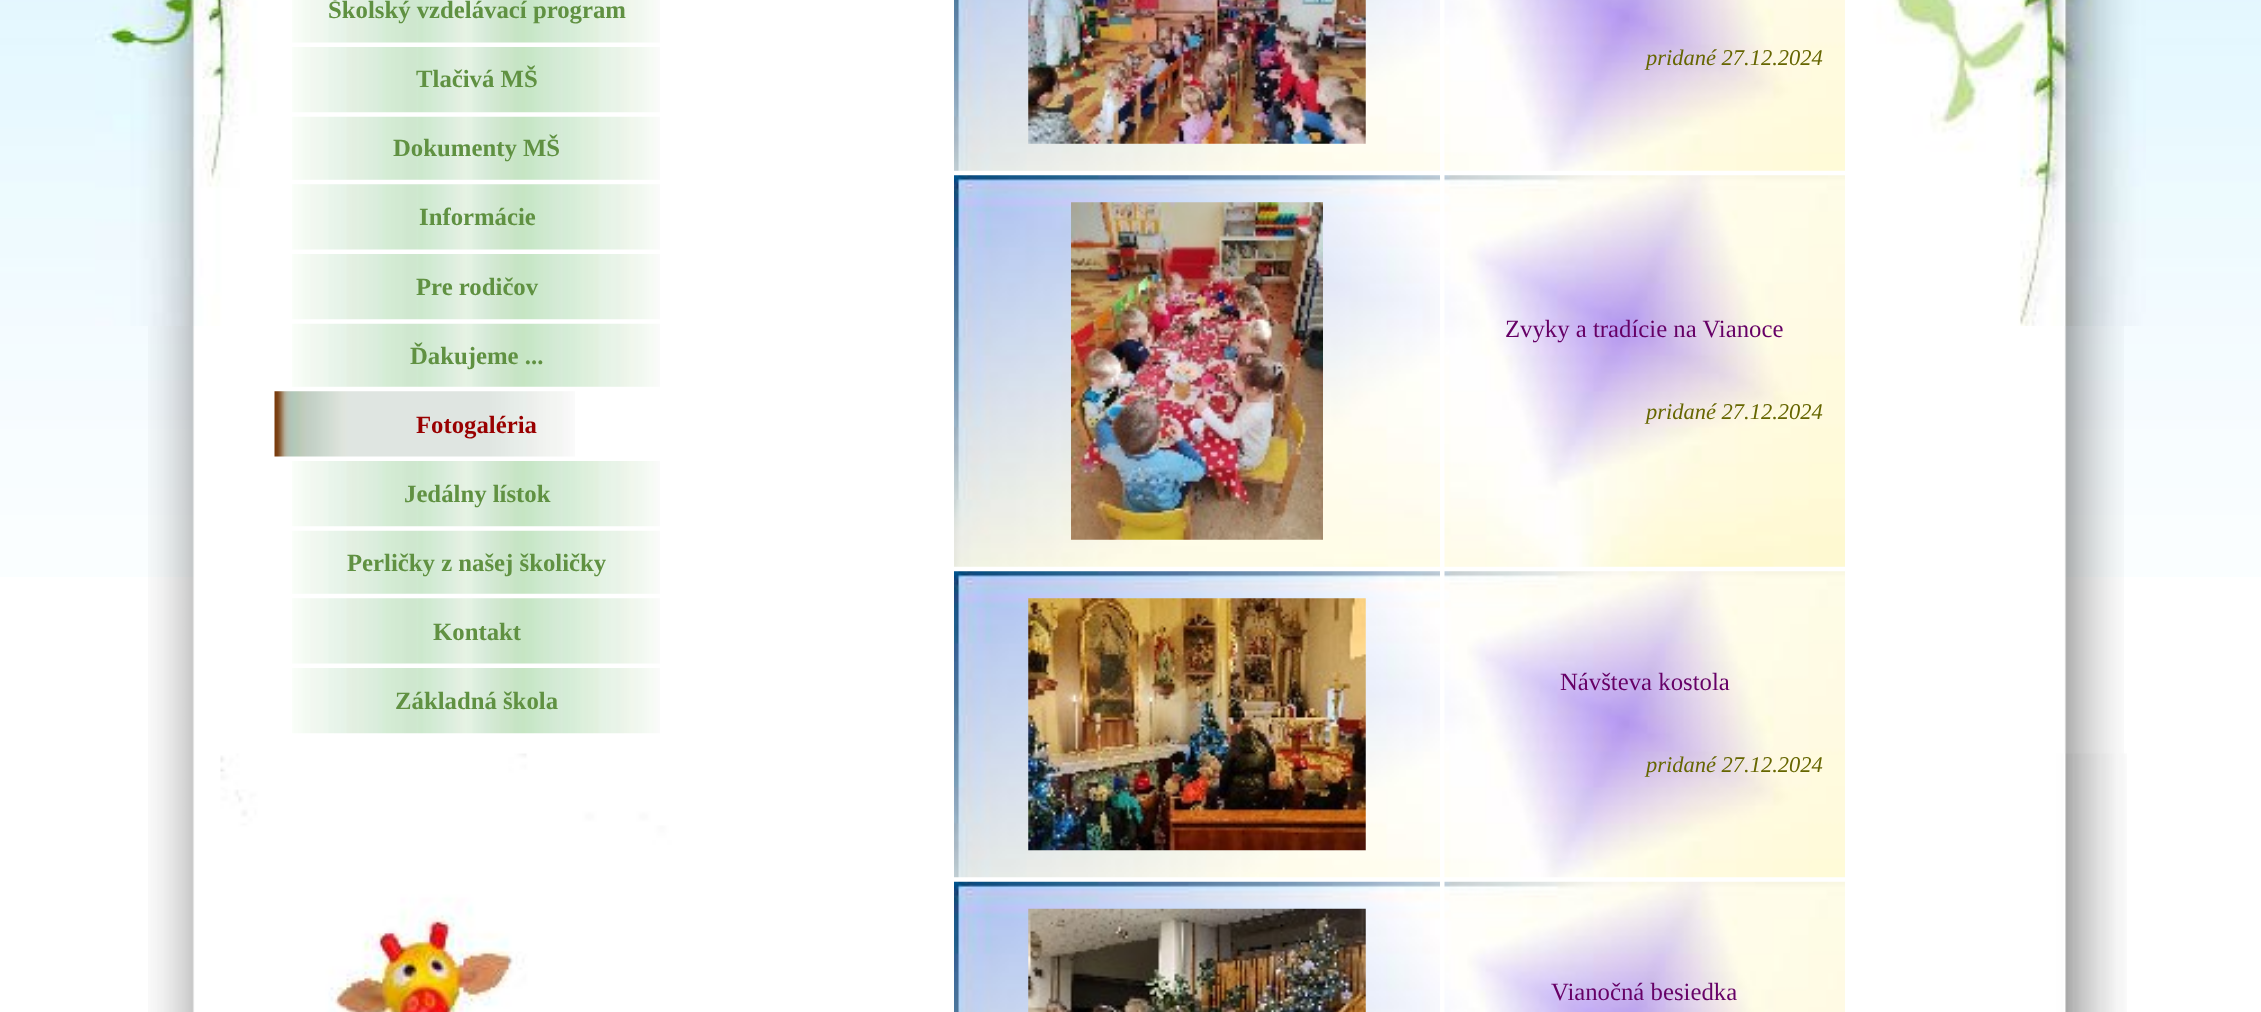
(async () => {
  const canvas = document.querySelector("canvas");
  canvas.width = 2261;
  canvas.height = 1012;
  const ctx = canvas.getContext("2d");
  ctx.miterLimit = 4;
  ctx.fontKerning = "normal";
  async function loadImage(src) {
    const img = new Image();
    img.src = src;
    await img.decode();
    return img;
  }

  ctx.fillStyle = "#ffffff";
  ctx.fillRect(0, 0, 2261, 1012);
  ctx.drawImage(await loadImage("img/1.png"), 0, 0, 2261, 577);
  ctx.drawImage(await loadImage("img/2.png"), 148, 326, 1976, 686);
  ctx.drawImage(await loadImage("img/3.png"), 220, 753, 1907, 259);
  ctx.drawImage(await loadImage("img/4.png"), 95, 0, 2051, 326);
  ctx.drawImage(await loadImage("img/5.png"), 117, 0, 104, 137);
  ctx.drawImage(await loadImage("img/6.png"), 292, 0, 368, 43);
  ctx.drawImage(await loadImage("img/7.png"), 292, 47, 368, 66);
  ctx.drawImage(await loadImage("img/8.png"), 292, 116, 368, 64);
  ctx.drawImage(await loadImage("img/9.png"), 292, 184, 368, 66);
  ctx.drawImage(await loadImage("img/7.png"), 292, 254, 368, 66);
  ctx.drawImage(await loadImage("img/8.png"), 292, 323, 368, 64);
  ctx.drawImage(await loadImage("img/10.png"), 274, 391, 301, 66);
  ctx.drawImage(await loadImage("img/7.png"), 292, 461, 368, 66);
  ctx.drawImage(await loadImage("img/8.png"), 292, 530, 368, 64);
  ctx.drawImage(await loadImage("img/9.png"), 292, 598, 368, 66);
  ctx.drawImage(await loadImage("img/7.png"), 292, 668, 368, 66);
  ctx.drawImage(await loadImage("img/11.png"), 954, 0, 486, 171);
  ctx.drawImage(await loadImage("img/12.png"), 1028, 0, 338, 144);
  ctx.drawImage(await loadImage("img/13.png"), 1444, 0, 401, 171);
  ctx.drawImage(await loadImage("img/14.png"), 954, 175, 486, 392);
  ctx.drawImage(await loadImage("img/15.png"), 1071, 202, 252, 338);
  ctx.drawImage(await loadImage("img/16.png"), 1444, 175, 401, 392);
  ctx.drawImage(await loadImage("img/17.png"), 954, 571, 486, 307);
  ctx.drawImage(await loadImage("img/18.png"), 1028, 598, 338, 253);
  ctx.drawImage(await loadImage("img/19.png"), 1444, 571, 401, 307);
  ctx.drawImage(await loadImage("img/20.png"), 954, 881, 486, 131);
  ctx.drawImage(await loadImage("img/21.png"), 1028, 908, 338, 104);
  ctx.drawImage(await loadImage("img/22.png"), 1444, 881, 401, 131);
  ctx.font = "bold 24.75px Liberation Serif";
  ctx.fillStyle = "#609142";
  for (const [text, x, y] of [
    ["Školský vzdelávací program", 328, 18],
    ["Tlačivá MŠ", 416, 87],
    ["Dokumenty MŠ", 393, 156],
    ["Informácie", 419, 225],
    ["Pre rodičov", 416, 295],
    ["Ďakujeme ...", 410, 364],
  ]) {
    ctx.fillText(text, x, y);
  }
  ctx.fillStyle = "#990000";
  ctx.fillText("Fotogaléria", 416, 433);
  ctx.fillStyle = "#609142";
  for (const [text, x, y] of [
    ["Jedálny lístok", 404, 502],
    ["Perličky z našej školičky", 347, 571],
    ["Kontakt", 433, 640],
    ["Základná škola", 395, 709],
  ]) {
    ctx.fillText(text, x, y);
  }
  ctx.font = "italic 22.5px Liberation Serif";
  ctx.fillStyle = "#666600";
  ctx.fillText("pridané 27.12.2024", 1646, 65);
  ctx.font = "24.75px Liberation Serif";
  ctx.fillStyle = "#660066";
  ctx.fillText("Zvyky a tradície na Vianoce", 1505, 337);
  ctx.font = "italic 22.5px Liberation Serif";
  ctx.fillStyle = "#666600";
  ctx.fillText("pridané 27.12.2024", 1646, 419);
  ctx.font = "24.75px Liberation Serif";
  ctx.fillStyle = "#660066";
  ctx.fillText("Návšteva kostola", 1560, 690);
  ctx.font = "italic 22.5px Liberation Serif";
  ctx.fillStyle = "#666600";
  ctx.fillText("pridané 27.12.2024", 1646, 772);
  ctx.font = "24.75px Liberation Serif";
  ctx.fillStyle = "#660066";
  ctx.fillText("Vianočná besiedka", 1551, 1000);
})();
